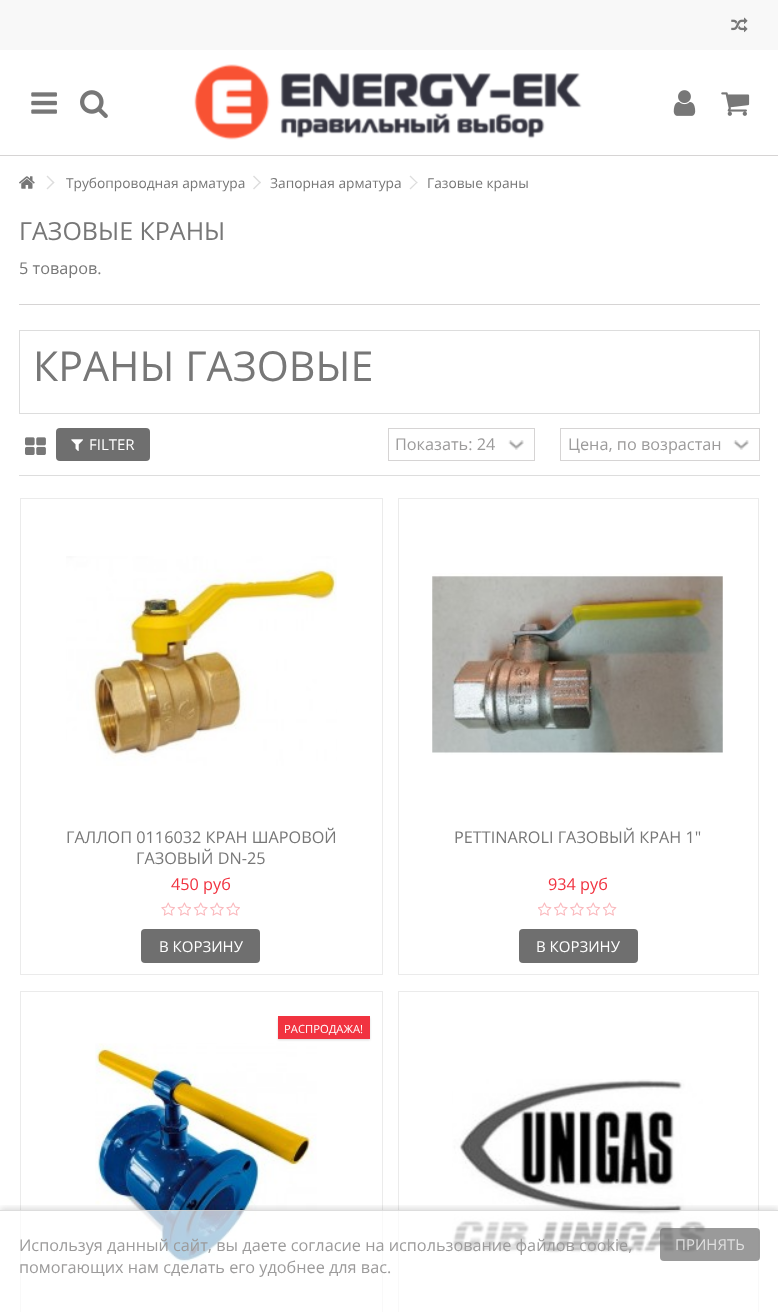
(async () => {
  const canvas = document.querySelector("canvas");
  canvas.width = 778;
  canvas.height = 1312;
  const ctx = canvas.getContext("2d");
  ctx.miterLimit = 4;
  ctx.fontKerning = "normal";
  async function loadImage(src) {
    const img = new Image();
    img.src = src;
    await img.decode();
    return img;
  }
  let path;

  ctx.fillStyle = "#ffffff";
  ctx.fillRect(0, 0, 778, 1312);
  ctx.fillStyle = "#f8f8f8";
  ctx.fillRect(0, 0, 778, 50);
  ctx.drawImage(await loadImage("img/1.png"), 731, 17, 17, 16);
  ctx.fillStyle = "#d6d4d4";
  ctx.fillRect(0, 155, 778, 1);
  ctx.drawImage(await loadImage("img/2.png"), 31, 92, 26, 22);
  ctx.drawImage(await loadImage("img/3.png"), 80, 90, 28, 28);
  ctx.drawImage(await loadImage("img/4.png"), 194, 64, 388, 76);
  ctx.drawImage(await loadImage("img/5.png"), 673, 90, 23, 26);
  ctx.drawImage(await loadImage("img/6.png"), 721, 92, 29, 24);
  ctx.drawImage(await loadImage("img/7.png"), 19, 176, 16, 13);
  ctx.fillStyle = "#dddddd";
  path = new Path2D("M47.5 175.5L54.5 182.5L53.5 183.5L46.5 176.5Z");
  ctx.fill(path);
  path = new Path2D("M53.5 181.5L54.5 182.5L47.5 189.5L46.5 188.5Z");
  ctx.fill(path);
  path = new Path2D("M254 175.5L261 182.5L260 183.5L253 176.5Z");
  ctx.fill(path);
  path = new Path2D("M260 181.5L261 182.5L254 189.5L253 188.5Z");
  ctx.fill(path);
  path = new Path2D("M410.5 175.5L417.5 182.5L417 183.5L409.5 176.5Z");
  ctx.fill(path);
  path = new Path2D("M417 181.5L417.5 182.5L410.5 189.5L409.5 188.5Z");
  ctx.fill(path);
  ctx.fillStyle = "#d6d4d4";
  ctx.fillRect(19, 304, 741, 1);
  ctx.strokeStyle = "#dddddd";
  ctx.strokeRect(19.5, 330.5, 740, 83);
  ctx.fillStyle = "#dddddd";
  ctx.fillRect(19, 475, 741, 1);
  ctx.drawImage(await loadImage("img/8.png"), 25, 437, 21, 18);
  ctx.fillStyle = "#6f6f6f";
  ctx.beginPath();
  ctx.roundRect(56, 428, 94, 33, 4);
  ctx.fill();
  ctx.drawImage(await loadImage("img/9.png"), 71, 439, 12, 12);
  ctx.drawImage(await loadImage("img/10.png"), 508, 440, 16, 10);
  ctx.strokeStyle = "#d6d4d4";
  ctx.strokeRect(388.5, 428.5, 146, 32);
  ctx.drawImage(await loadImage("img/11.png"), 733, 440, 16, 10);
  ctx.strokeRect(560.5, 428.5, 199, 32);
  path = new Path2D("M19 475.5H760");
  ctx.strokeStyle = "#dddddd";
  ctx.lineWidth = 1.2;
  ctx.setLineDash([1.25, 1.25]);
  ctx.stroke(path);
  ctx.strokeStyle = "#ebebeb";
  ctx.lineWidth = 1;
  ctx.setLineDash([]);
  ctx.strokeRect(20.5, 498.5, 362, 476);
  ctx.drawImage(await loadImage("img/12.png"), 66, 556, 271, 210);
  ctx.drawImage(await loadImage("img/13.png"), 161, 902, 14, 14);
  ctx.drawImage(await loadImage("img/14.png"), 177, 902, 14, 14);
  ctx.drawImage(await loadImage("img/15.png"), 193, 902, 15, 14);
  ctx.drawImage(await loadImage("img/16.png"), 210, 902, 14, 14);
  ctx.drawImage(await loadImage("img/13.png"), 226, 902, 14, 14);
  ctx.beginPath();
  ctx.roundRect(141, 929, 119, 34, 4);
  ctx.fill();
  ctx.strokeRect(398.5, 498.5, 360, 476);
  ctx.drawImage(await loadImage("img/17.png"), 432, 573, 291, 182);
  ctx.drawImage(await loadImage("img/18.png"), 432, 576, 291, 177);
  ctx.drawImage(await loadImage("img/19.png"), 538, 902, 14, 14);
  ctx.drawImage(await loadImage("img/20.png"), 554, 902, 14, 14);
  ctx.drawImage(await loadImage("img/16.png"), 570, 902, 14, 14);
  ctx.drawImage(await loadImage("img/21.png"), 586, 902, 15, 14);
  ctx.drawImage(await loadImage("img/19.png"), 603, 902, 14, 14);
  ctx.beginPath();
  ctx.roundRect(519, 929, 119, 34, 4);
  ctx.fill();
  ctx.strokeRect(20.5, 991.5, 362, 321);
  ctx.drawImage(await loadImage("img/22.png"), 95, 1043, 222, 221);
  ctx.fillStyle = "rgba(0, 0, 0, 0.15)";
  ctx.filter = "blur(1px)";
  ctx.beginPath();
  ctx.rect(278, 1018, 92, 22);
  ctx.fill();
  ctx.filter = "none";
  ctx.fillStyle = "#f13340";
  ctx.fillRect(278, 1016, 92, 23);
  ctx.strokeRect(398.5, 991.5, 360, 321);
  ctx.drawImage(await loadImage("img/23.png"), 452, 1079, 255, 176);
  ctx.save();
  ctx.beginPath();
  ctx.rect(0, 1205, 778, 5);
  ctx.clip();
  ctx.fillStyle = "rgba(0, 0, 0, 0.14)";
  ctx.filter = "blur(3px)";
  ctx.beginPath();
  ctx.rect(0, 1208, 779, 102);
  ctx.fill();
  ctx.filter = "none";
  ctx.restore();
  ctx.fillStyle = "rgba(255, 255, 255, 0.7)";
  ctx.fillRect(20, 1210, 739, 102);
  ctx.fillStyle = "rgba(206, 206, 206, 0.7)";
  ctx.fillRect(0, 1210, 778, 1);
  ctx.fillStyle = "rgba(111, 111, 111, 0.7)";
  ctx.beginPath();
  ctx.roundRect(660, 1228, 100, 33, 4);
  ctx.fill();
  ctx.font = "13.75px Open Sans";
  ctx.fillStyle = "#777777";
  for (const [text, x, y] of [
    ["Трубопроводная арматура", 66, 188],
    ["Запорная арматура", 270, 188],
    ["Газовые краны", 427, 188],
  ]) {
    ctx.fillText(text, x, y);
  }
  ctx.font = "25px Open Sans";
  ctx.fillText("ГАЗОВЫЕ КРАНЫ", 19, 240);
  ctx.font = "16.25px Open Sans";
  ctx.fillText("5 товаров.", 19, 274);
  ctx.font = "41.25px Open Sans";
  ctx.fillText("КРАНЫ ГАЗОВЫЕ", 33, 381);
  ctx.font = "15px Open Sans";
  ctx.fillStyle = "#ffffff";
  ctx.fillText("FILTER", 89, 450);
  ctx.font = "16.25px Open Sans";
  ctx.fillStyle = "#9c9b9b";
  ctx.fillText("Показать: 24", 395, 450);
  ctx.fillText("Цена, по возрастан", 568, 450);
  ctx.fillStyle = "#777777";
  ctx.fillText("ГАЛЛОП 0116032 КРАН ШАРОВОЙ", 66, 843);
  ctx.fillText("ГАЗОВЫЙ DN-25", 136, 864);
  ctx.fillStyle = "#f13340";
  ctx.fillText("450 руб", 171, 890);
  ctx.font = "15px Open Sans";
  ctx.fillStyle = "#ffffff";
  ctx.fillText("В КОРЗИНУ", 159, 952);
  ctx.font = "16.25px Open Sans";
  ctx.fillStyle = "#777777";
  ctx.fillText("PETTINAROLI ГАЗОВЫЙ КРАН 1\"", 454, 843);
  ctx.fillStyle = "#f13340";
  ctx.fillText("934 руб", 548, 890);
  ctx.font = "15px Open Sans";
  ctx.fillStyle = "#ffffff";
  ctx.fillText("В КОРЗИНУ", 536, 952);
  ctx.font = "11.25px Open Sans";
  ctx.fillText("РАСПРОДАЖА!", 284, 1033);
  ctx.font = "16.25px Open Sans";
  ctx.fillStyle = "#9c9b9b";
  ctx.fillText("Используя данный сайт, вы даете согласие на использование файлов cookie,", 19, 1251);
  ctx.fillText("помогающих нам сделать его удобнее для вас.", 19, 1273);
  ctx.font = "15px Open Sans";
  ctx.fillStyle = "#dfdfdf";
  ctx.fillText("ПРИНЯТЬ", 675, 1250);
})();
